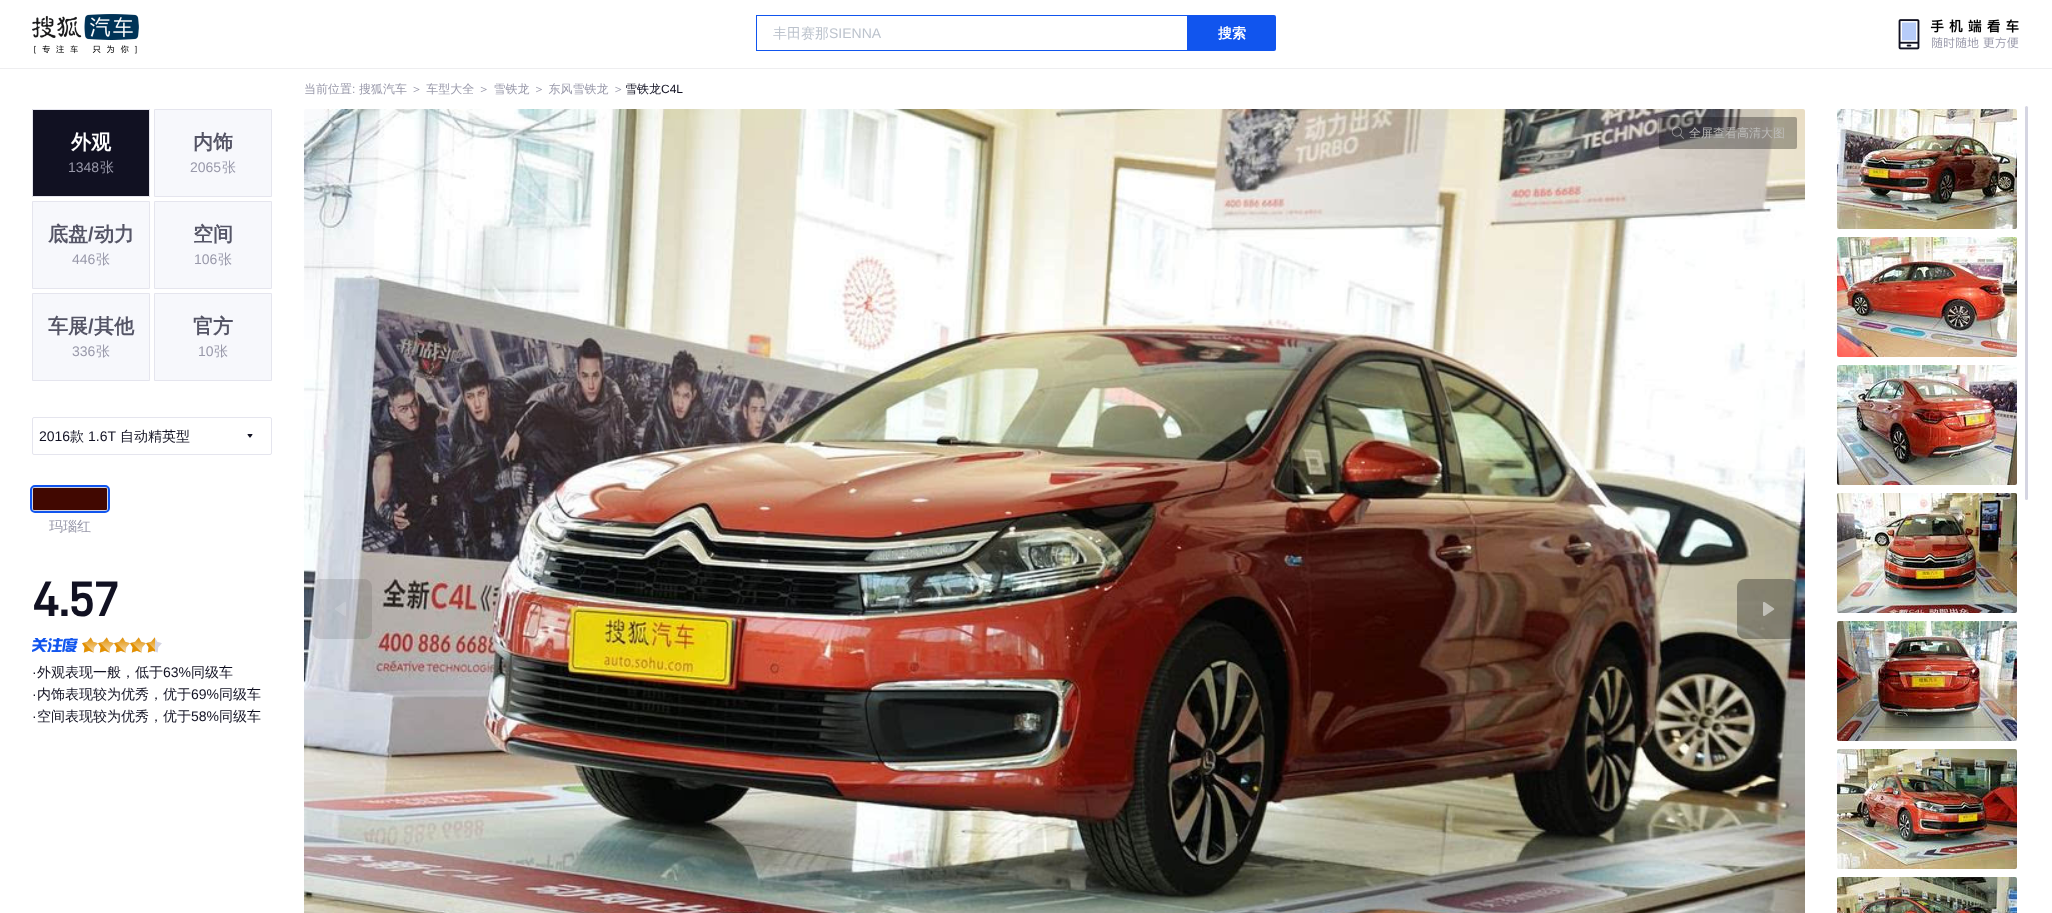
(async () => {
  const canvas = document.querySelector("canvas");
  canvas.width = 2052;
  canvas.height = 913;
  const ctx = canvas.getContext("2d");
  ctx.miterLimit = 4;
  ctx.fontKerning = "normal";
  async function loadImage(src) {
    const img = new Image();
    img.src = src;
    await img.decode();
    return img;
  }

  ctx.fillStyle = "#ffffff";
  ctx.fillRect(0, 0, 2052, 913);
  ctx.fillStyle = "#eeeef0";
  ctx.fillRect(0, 68, 2052, 1);
  ctx.drawImage(await loadImage("img/1.png"), 32, 14, 107, 40);
  ctx.strokeStyle = "#1155ee";
  ctx.strokeRect(756.5, 15.5, 431, 35);
  ctx.fillStyle = "#1155ee";
  ctx.beginPath();
  ctx.roundRect(1188, 15, 88, 36, [0, 2, 2, 0]);
  ctx.fill();
  ctx.drawImage(await loadImage("img/2.png"), 1898, 19, 121, 31);
  ctx.fillStyle = "#111122";
  ctx.beginPath();
  ctx.rect(32.5, 109.5, 117, 87);
  ctx.fill();
  ctx.strokeStyle = "#e5e5ee";
  ctx.stroke();
  ctx.fillStyle = "#f7f8fc";
  ctx.beginPath();
  ctx.rect(154.5, 109.5, 117, 87);
  ctx.fill();
  ctx.stroke();
  ctx.beginPath();
  ctx.rect(32.5, 201.5, 117, 87);
  ctx.fill();
  ctx.stroke();
  ctx.beginPath();
  ctx.rect(154.5, 201.5, 117, 87);
  ctx.fill();
  ctx.stroke();
  ctx.beginPath();
  ctx.rect(32.5, 293.5, 117, 87);
  ctx.fill();
  ctx.stroke();
  ctx.beginPath();
  ctx.rect(154.5, 293.5, 117, 87);
  ctx.fill();
  ctx.stroke();
  ctx.beginPath();
  ctx.roundRect(32.5, 417.5, 239, 37, 1.5);
  ctx.stroke();
  ctx.drawImage(await loadImage("img/3.png"), 247, 434, 6, 4);
  ctx.beginPath();
  ctx.roundRect(32.5, 487.5, 75, 23, 1.5);
  ctx.strokeStyle = "#d5d5e2";
  ctx.stroke();
  ctx.fillStyle = "#410801";
  ctx.beginPath();
  ctx.roundRect(33, 488, 74, 22, 1);
  ctx.fill();
  ctx.beginPath();
  ctx.roundRect(31, 486, 78, 26, 4);
  ctx.strokeStyle = "#1155ee";
  ctx.lineWidth = 2;
  ctx.stroke();
  ctx.drawImage(await loadImage("img/4.png"), 32, 638, 46, 14);
  ctx.drawImage(await loadImage("img/5.png"), 82, 637, 16, 16);
  ctx.drawImage(await loadImage("img/6.png"), 82, 637, 16, 16);
  ctx.drawImage(await loadImage("img/5.png"), 98, 637, 16, 16);
  ctx.drawImage(await loadImage("img/6.png"), 98, 637, 16, 16);
  ctx.drawImage(await loadImage("img/5.png"), 114, 637, 16, 16);
  ctx.drawImage(await loadImage("img/6.png"), 114, 637, 16, 16);
  ctx.drawImage(await loadImage("img/5.png"), 130, 637, 16, 16);
  ctx.drawImage(await loadImage("img/6.png"), 130, 637, 16, 16);
  ctx.drawImage(await loadImage("img/5.png"), 146, 637, 16, 16);
  ctx.drawImage(await loadImage("img/7.png"), 146, 637, 9, 16);
  ctx.drawImage(await loadImage("img/8.png"), 304, 109, 1501, 804);
  ctx.fillStyle = "rgba(0, 0, 0, 0.3)";
  ctx.beginPath();
  ctx.roundRect(1659, 117, 138, 32, 2);
  ctx.fill();
  ctx.drawImage(await loadImage("img/9.png"), 1671, 126, 13, 13);
  ctx.fillStyle = "rgba(0, 0, 0, 0.1)";
  ctx.beginPath();
  ctx.roundRect(312, 579, 60, 60, 8);
  ctx.fill();
  ctx.drawImage(await loadImage("img/10.png"), 335, 602, 11, 14);
  ctx.fillStyle = "rgba(0, 0, 0, 0.3)";
  ctx.beginPath();
  ctx.roundRect(1737, 579, 60, 60, 8);
  ctx.fill();
  ctx.drawImage(await loadImage("img/11.png"), 1763, 602, 12, 14);
  ctx.drawImage(await loadImage("img/12.png"), 1837, 109, 180, 120);
  ctx.drawImage(await loadImage("img/13.png"), 1837, 237, 180, 120);
  ctx.drawImage(await loadImage("img/14.png"), 1837, 365, 180, 120);
  ctx.drawImage(await loadImage("img/15.png"), 1837, 493, 180, 120);
  ctx.drawImage(await loadImage("img/16.png"), 1837, 621, 180, 120);
  ctx.drawImage(await loadImage("img/17.png"), 1837, 749, 180, 120);
  ctx.drawImage(await loadImage("img/18.png"), 1837, 877, 180, 36);
  ctx.fillStyle = "#d5d5e2";
  ctx.beginPath();
  ctx.roundRect(2025, 106, 3, 394, 1.5);
  ctx.fill();
  ctx.font = "500 14px WenQuanYi Zen Hei";
  ctx.fillStyle = "#bbc2cc";
  ctx.fillText("丰田赛那", 773, 38);
  ctx.font = "14px Liberation Sans";
  ctx.fillText("SIENNA", 829, 38);
  ctx.font = "bold 14px WenQuanYi Zen Hei";
  ctx.fillStyle = "#ffffff";
  ctx.fillText("搜索", 1218, 38);
  ctx.font = "500 12px WenQuanYi Zen Hei";
  ctx.fillStyle = "#9999aa";
  ctx.fillText("当前位置", 304, 93);
  ctx.font = "12px Liberation Sans";
  ctx.fillText(":", 352, 93);
  ctx.font = "500 12px WenQuanYi Zen Hei";
  ctx.fillText("搜狐汽车 ＞ 车型大全 ＞ 雪铁龙 ＞ 东风雪铁龙 ＞", 359, 93);
  ctx.fillStyle = "#111122";
  ctx.fillText("雪铁龙", 625, 93);
  ctx.font = "12px Liberation Sans";
  ctx.fillText("C4L", 661, 93);
  ctx.font = "bold 20px WenQuanYi Zen Hei";
  ctx.fillStyle = "#ffffff";
  ctx.fillText("外观", 71, 149);
  ctx.font = "14px Liberation Sans";
  ctx.fillStyle = "#9999aa";
  ctx.fillText("1348", 68, 172);
  ctx.font = "500 14px WenQuanYi Zen Hei";
  ctx.fillText("张", 100, 172);
  ctx.font = "bold 20px WenQuanYi Zen Hei";
  ctx.fillStyle = "#555566";
  ctx.fillText("内饰", 193, 149);
  ctx.font = "14px Liberation Sans";
  ctx.fillStyle = "#9999aa";
  ctx.fillText("2065", 190, 172);
  ctx.font = "500 14px WenQuanYi Zen Hei";
  ctx.fillText("张", 222, 172);
  ctx.font = "bold 20px WenQuanYi Zen Hei";
  ctx.fillStyle = "#555566";
  ctx.fillText("底盘", 48, 241);
  ctx.font = "bold 20px Liberation Sans";
  ctx.fillText("/", 88, 241);
  ctx.font = "bold 20px WenQuanYi Zen Hei";
  ctx.fillText("动力", 94, 241);
  ctx.font = "14px Liberation Sans";
  ctx.fillStyle = "#9999aa";
  ctx.fillText("446", 72, 264);
  ctx.font = "500 14px WenQuanYi Zen Hei";
  ctx.fillText("张", 96, 264);
  ctx.font = "bold 20px WenQuanYi Zen Hei";
  ctx.fillStyle = "#555566";
  ctx.fillText("空间", 193, 241);
  ctx.font = "14px Liberation Sans";
  ctx.fillStyle = "#9999aa";
  ctx.fillText("106", 194, 264);
  ctx.font = "500 14px WenQuanYi Zen Hei";
  ctx.fillText("张", 218, 264);
  ctx.font = "bold 20px WenQuanYi Zen Hei";
  ctx.fillStyle = "#555566";
  ctx.fillText("车展", 48, 333);
  ctx.font = "bold 20px Liberation Sans";
  ctx.fillText("/", 88, 333);
  ctx.font = "bold 20px WenQuanYi Zen Hei";
  ctx.fillText("其他", 94, 333);
  ctx.font = "14px Liberation Sans";
  ctx.fillStyle = "#9999aa";
  ctx.fillText("336", 72, 356);
  ctx.font = "500 14px WenQuanYi Zen Hei";
  ctx.fillText("张", 96, 356);
  ctx.font = "bold 20px WenQuanYi Zen Hei";
  ctx.fillStyle = "#555566";
  ctx.fillText("官方", 193, 333);
  ctx.font = "14px Liberation Sans";
  ctx.fillStyle = "#9999aa";
  ctx.fillText("10", 198, 356);
  ctx.font = "500 14px WenQuanYi Zen Hei";
  ctx.fillText("张", 214, 356);
  ctx.font = "14px Liberation Sans";
  ctx.fillStyle = "#111122";
  ctx.fillText("2016", 39, 441);
  ctx.font = "500 14px WenQuanYi Zen Hei";
  ctx.fillText("款", 70, 441);
  ctx.font = "14px Liberation Sans";
  ctx.fillText("1.6T", 88, 441);
  ctx.font = "500 14px WenQuanYi Zen Hei";
  ctx.fillText("自动精英型", 120, 441);
  ctx.fillStyle = "#9999aa";
  ctx.fillText("玛瑙红", 49, 531);
  ctx.font = "bold 48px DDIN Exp";
  ctx.fillStyle = "#111122";
  ctx.fillText("4.57", 32, 616);
  ctx.font = "14px Liberation Sans";
  ctx.fillText("·", 32, 677);
  ctx.font = "500 14px WenQuanYi Zen Hei";
  ctx.fillText("外观表现一般，低于", 37, 677);
  ctx.font = "14px Liberation Sans";
  ctx.fillText("63%", 163, 677);
  ctx.font = "500 14px WenQuanYi Zen Hei";
  ctx.fillText("同级车", 191, 677);
  ctx.font = "14px Liberation Sans";
  ctx.fillText("·", 32, 699);
  ctx.font = "500 14px WenQuanYi Zen Hei";
  ctx.fillText("内饰表现较为优秀，优于", 37, 699);
  ctx.font = "14px Liberation Sans";
  ctx.fillText("69%", 191, 699);
  ctx.font = "500 14px WenQuanYi Zen Hei";
  ctx.fillText("同级车", 219, 699);
  ctx.font = "14px Liberation Sans";
  ctx.fillText("·", 32, 721);
  ctx.font = "500 14px WenQuanYi Zen Hei";
  ctx.fillText("空间表现较为优秀，优于", 37, 721);
  ctx.font = "14px Liberation Sans";
  ctx.fillText("58%", 191, 721);
  ctx.font = "500 14px WenQuanYi Zen Hei";
  ctx.fillText("同级车", 219, 721);
  ctx.font = "500 12px WenQuanYi Zen Hei";
  ctx.fillStyle = "#bcbbb9";
  ctx.fillText("全屏查看高清大图", 1689, 137);
})();
